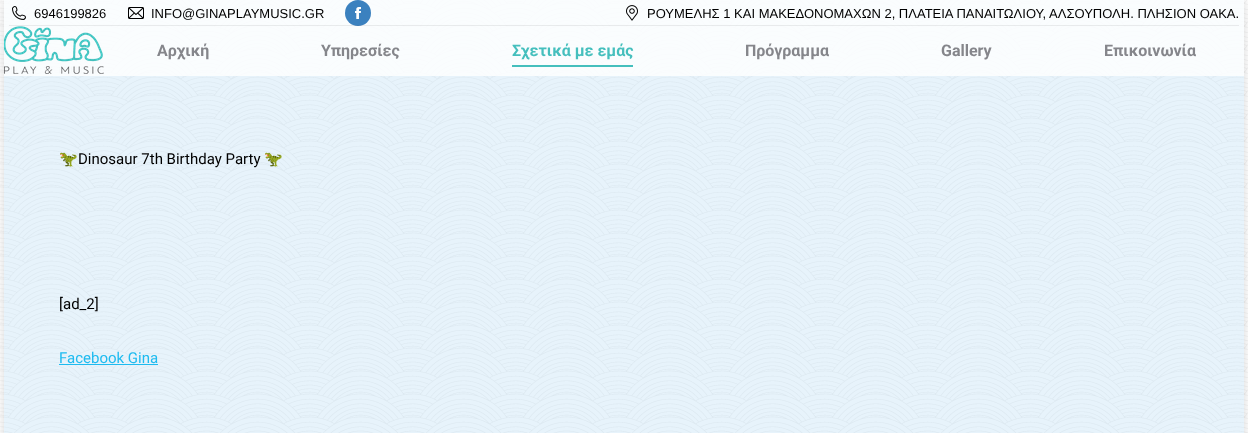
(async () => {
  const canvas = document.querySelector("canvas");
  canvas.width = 1248;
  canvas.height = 433;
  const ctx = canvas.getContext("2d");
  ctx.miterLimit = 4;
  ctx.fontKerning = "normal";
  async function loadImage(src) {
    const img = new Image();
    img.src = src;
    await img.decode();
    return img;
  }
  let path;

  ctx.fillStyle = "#ffffff";
  ctx.fillRect(0, 0, 1248, 433);
  ctx.drawImage(await loadImage("img/1.png"), 0, 0, 1248, 433);
  ctx.save();
  path = new Path2D("M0 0H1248V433H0ZM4 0H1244V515H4Z");
  ctx.clip(path, "evenodd");
  ctx.fillStyle = "rgba(0, 0, 0, 0.15)";
  ctx.filter = "blur(6px)";
  ctx.beginPath();
  ctx.rect(4, 0, 1240, 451);
  ctx.fill();
  ctx.filter = "none";
  ctx.restore();
  ctx.fillStyle = "rgba(255, 255, 255, 0.8)";
  ctx.fillRect(4, 0, 1240, 76);
  ctx.drawImage(await loadImage("img/2.png"), 12, 6, 14, 14);
  ctx.drawImage(await loadImage("img/3.png"), 128, 7, 16, 12);
  ctx.fillStyle = "#3b81bf";
  ctx.beginPath();
  ctx.arc(358, 13, 13, 0, Math.PI * 2);
  ctx.fill();
  ctx.drawImage(await loadImage("img/4.png"), 355, 7, 6, 12);
  ctx.drawImage(await loadImage("img/5.png"), 626, 5, 12, 16);
  ctx.fillStyle = "rgba(51, 51, 51, 0.09)";
  ctx.fillRect(9, 25, 1230, 1);
  ctx.drawImage(await loadImage("img/6.png"), 4, 26, 100, 48);
  ctx.fillStyle = "#45bfbd";
  ctx.fillRect(512, 65, 121, 2);
  ctx.fillStyle = "#1ebbf0";
  ctx.fillRect(59, 364, 99, 1);
  ctx.font = "13px Liberation Sans";
  ctx.fillStyle = "#000000";
  for (const [text, x, y] of [
    ["6946199826", 34, 18],
    ["INFO@GINAPLAYMUSIC.GR", 151, 18],
    ["ΡΟΥΜΕΛΗΣ 1 ΚΑΙ ΜΑΚΕΔΟΝΟΜΑΧΩΝ 2, ΠΛΑΤΕΙΑ ΠΑΝΑΙΤΩΛΙΟΥ, ΑΛΣΟΥΠΟΛΗ. ΠΛΗΣΙΟΝ ΟΑΚΑ.", 647, 18],
  ]) {
    ctx.fillText(text, x, y);
  }
  ctx.font = "bold 16px Roboto";
  ctx.fillStyle = "#85868b";
  ctx.fillText("Αρχική", 157, 56);
  ctx.fillText("Υπηρεσίες", 321, 56);
  ctx.fillStyle = "#45bfbd";
  ctx.fillText("Σχετικά με εμάς", 512, 56);
  ctx.fillStyle = "#85868b";
  for (const [text, x, y] of [
    ["Πρόγραμμα", 745, 56],
    ["Gallery", 941, 56],
    ["Επικοινωνία", 1104, 56],
  ]) {
    ctx.fillText(text, x, y);
  }
  ctx.font = "15px Noto Color Emoji";
  ctx.fillStyle = "#000000";
  ctx.fillText("🦖", 59, 164);
  ctx.font = "15px Roboto";
  ctx.fillText("Dinosaur 7th Birthday Party", 78, 164);
  ctx.font = "15px Noto Color Emoji";
  ctx.fillText("🦖", 264, 164);
  ctx.font = "15px Roboto";
  ctx.fillText("[ad_2]", 59, 309);
  ctx.fillStyle = "#1ebbf0";
  ctx.fillText("Facebook Gina", 59, 363);
})();
